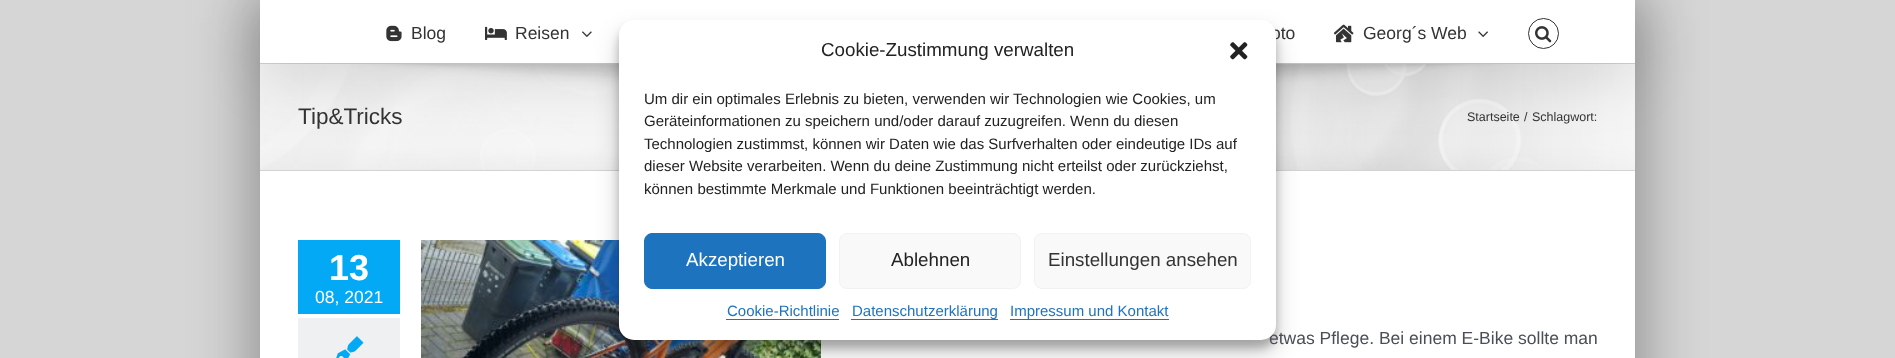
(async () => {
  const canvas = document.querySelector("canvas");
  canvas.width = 1895;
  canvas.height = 358;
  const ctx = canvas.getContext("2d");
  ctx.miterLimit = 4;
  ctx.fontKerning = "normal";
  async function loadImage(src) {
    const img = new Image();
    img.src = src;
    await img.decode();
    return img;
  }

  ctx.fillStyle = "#d7d6d6";
  ctx.fillRect(0, 0, 1895, 358);
  ctx.fillStyle = "rgba(0, 0, 0, 0.35)";
  ctx.filter = "blur(31px)";
  ctx.beginPath();
  ctx.rect(254, -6, 1387, 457);
  ctx.fill();
  ctx.filter = "none";
  ctx.fillStyle = "#f6f6f6";
  ctx.fillRect(260, 64, 1375, 106);
  ctx.drawImage(await loadImage("img/7.png"), 260, 64, 1375, 106);
  ctx.fillStyle = "#d2d3d4";
  ctx.fillRect(260, 63, 1375, 1);
  ctx.fillStyle = "rgba(0, 0, 0, 0.14)";
  ctx.filter = "blur(31px)";
  ctx.beginPath();
  ctx.rect(263, 15, 1370, 58);
  ctx.fill();
  ctx.filter = "none";
  ctx.fillStyle = "#ffffff";
  ctx.fillRect(260, 0, 1375, 63);
  ctx.drawImage(await loadImage("img/1.png"), 386, 25, 16, 17);
  ctx.drawImage(await loadImage("img/2.png"), 485, 26, 22, 14);
  ctx.drawImage(await loadImage("img/3.png"), 582, 31, 10, 6);
  ctx.drawImage(await loadImage("img/4.png"), 1334, 24, 20, 19);
  ctx.drawImage(await loadImage("img/5.png"), 1478, 31, 10, 6);
  ctx.beginPath();
  ctx.arc(1543.5, 33.5, 15, 0, Math.PI * 2);
  ctx.strokeStyle = "#333333";
  ctx.stroke();
  ctx.drawImage(await loadImage("img/6.png"), 1535, 26, 17, 17);
  for (const [x, y, w, h, color] of [
    [260, 170, 1375, 1, "#d2d3d4"],
    [260, 171, 1375, 187, "#ffffff"],
    [298, 240, 102, 74, "#03a9f4"],
    [298, 318, 102, 40, "#eef0f2"],
  ]) {
    ctx.fillStyle = color;
    ctx.fillRect(x, y, w, h);
  }
  ctx.drawImage(await loadImage("img/8.png"), 336, 336, 28, 22);
  ctx.drawImage(await loadImage("img/9.png"), 421, 240, 400, 118);
  ctx.fillStyle = "rgba(0, 0, 0, 0.23)";
  ctx.filter = "blur(4px)";
  ctx.beginPath();
  ctx.roundRect(619, 28, 657, 320, 15);
  ctx.fill();
  ctx.filter = "none";
  ctx.fillStyle = "rgba(0, 0, 0, 0.19)";
  ctx.filter = "blur(12.5px)";
  ctx.beginPath();
  ctx.roundRect(619, 33, 657, 320, 15);
  ctx.fill();
  ctx.filter = "none";
  ctx.font = "17.5px Liberation Sans";
  ctx.fillStyle = "#333333";
  for (const [text, x, y] of [
    ["Blog", 411, 39],
    ["Reisen", 515, 39],
    ["oto", 1271, 39],
    ["Georg´s Web", 1363, 39],
  ]) {
    ctx.fillText(text, x, y);
  }
  ctx.font = "22.5px Liberation Sans";
  ctx.fillText("Tip&Tricks", 298, 124);
  ctx.font = "12.5px Liberation Sans";
  for (const [text, x, y] of [
    ["Startseite", 1467, 121],
    ["/", 1524, 121],
    ["Schlagwort:", 1532, 121],
  ]) {
    ctx.fillText(text, x, y);
  }
  ctx.font = "bold 36px Liberation Sans";
  ctx.fillStyle = "#ffffff";
  ctx.fillText("13", 329, 280);
  ctx.font = "17.5px Liberation Sans";
  ctx.fillText("08, 2021", 315, 303);
  ctx.fillStyle = "#4a4e57";
  ctx.fillText("etwas Pflege. Bei einem E-Bike sollte man", 1269, 344);
  ctx.fillStyle = "#ffffff";
  ctx.beginPath();
  ctx.roundRect(619, 20, 657, 320, 15);
  ctx.fill();
  ctx.font = "18.75px Liberation Sans";
  ctx.fillStyle = "#222222";
  ctx.fillText("Cookie-Zustimmung verwalten", 821, 56);
  ctx.drawImage(await loadImage("img/10.png"), 1230, 42, 18, 18);
  ctx.font = "15px Liberation Sans";
  for (const [text, x, y] of [
    ["Um dir ein optimales Erlebnis zu bieten, verwenden wir Technologien wie Cookies, um", 644, 104],
    ["Geräteinformationen zu speichern und/oder darauf zuzugreifen. Wenn du diesen", 644, 126],
    ["Technologien zustimmst, können wir Daten wie das Surfverhalten oder eindeutige IDs auf", 644, 149],
    ["dieser Website verarbeiten. Wenn du deine Zustimmung nicht erteilst oder zurückziehst,", 644, 171],
    ["können bestimmte Merkmale und Funktionen beeinträchtigt werden.", 644, 194],
  ]) {
    ctx.fillText(text, x, y);
  }
  ctx.fillStyle = "#1e73be";
  ctx.beginPath();
  ctx.roundRect(644.5, 233.5, 181, 55, 7.5);
  ctx.fill();
  ctx.strokeStyle = "#1e73be";
  ctx.stroke();
  ctx.font = "18.75px Liberation Sans";
  ctx.fillStyle = "#ffffff";
  ctx.fillText("Akzeptieren", 686, 266);
  ctx.fillStyle = "#f9f9f9";
  ctx.beginPath();
  ctx.roundRect(839.5, 233.5, 181, 55, 7.5);
  ctx.fill();
  ctx.strokeStyle = "#f2f2f2";
  ctx.stroke();
  ctx.fillStyle = "#222222";
  ctx.fillText("Ablehnen", 891, 266);
  ctx.fillStyle = "#f9f9f9";
  ctx.beginPath();
  ctx.roundRect(1034.5, 233.5, 216, 55, 7.5);
  ctx.fill();
  ctx.stroke();
  ctx.fillStyle = "#333333";
  ctx.fillText("Einstellungen ansehen", 1048, 266);
  ctx.font = "15px Liberation Sans";
  ctx.fillStyle = "#1e73be";
  ctx.fillText("Cookie-Richtlinie", 727, 316);
  ctx.fillRect(726, 319, 113, 1);
  ctx.fillRect(851, 319, 147, 1);
  ctx.fillText("Datenschutzerklärung", 852, 316);
  ctx.fillRect(1010, 319, 159, 1);
  ctx.fillText("Impressum und Kontakt", 1010, 316);
})();
